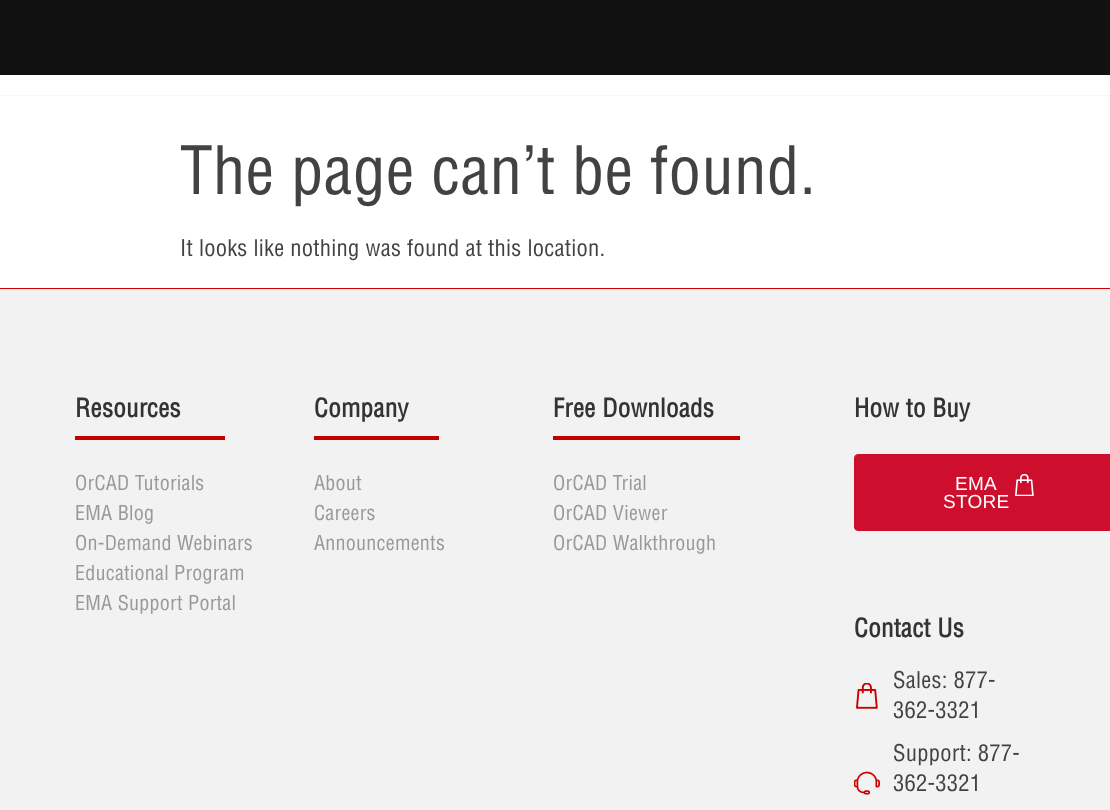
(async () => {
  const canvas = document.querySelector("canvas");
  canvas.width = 1110;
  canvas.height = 810;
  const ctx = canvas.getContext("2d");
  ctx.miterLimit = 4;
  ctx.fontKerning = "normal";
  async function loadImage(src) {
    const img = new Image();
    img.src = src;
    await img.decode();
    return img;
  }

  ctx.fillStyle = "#ffffff";
  ctx.fillRect(0, 0, 1110, 810);
  for (const [x, y, w, h, color] of [
    [0, 0, 1110, 75, "#111111"],
    [0, 95, 1110, 1, "#f6f6f6"],
    [0, 289, 1110, 521, "#f2f2f2"],
    [0, 288, 1110, 1, "#cc0000"],
    [75, 436, 150, 4, "#c30000"],
    [314, 436, 125, 4, "#c30000"],
    [553, 436, 187, 4, "#c30000"],
  ]) {
    ctx.fillStyle = color;
    ctx.fillRect(x, y, w, h);
  }
  ctx.fillStyle = "#ce0e2d";
  ctx.beginPath();
  ctx.roundRect(854.5, 454.5, 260, 76, 3.5);
  ctx.fill();
  ctx.strokeStyle = "#ce0e2d";
  ctx.stroke();
  ctx.drawImage(await loadImage("img/1.png"), 1015, 474, 19, 22);
  ctx.drawImage(await loadImage("img/2.png"), 856, 683, 22, 26);
  ctx.drawImage(await loadImage("img/3.png"), 854, 771, 26, 24);
  ctx.letterSpacing = "0.25px";
  ctx.font = "65px 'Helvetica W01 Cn'";
  ctx.fillStyle = "#424242";
  ctx.fillText("The page can’t be found.", 180, 194);
  ctx.font = "22.5px 'Helvetica W01 Cn'";
  ctx.fillText("It looks like nothing was found at this location.", 180, 256);
  ctx.font = "bold 25px 'Helvetica W01 Cn'";
  ctx.fillStyle = "#333333";
  ctx.fillText("Resources", 75, 417);
  ctx.font = "20px 'Helvetica W01 Cn'";
  ctx.fillStyle = "#999999";
  for (const [text, x, y] of [
    ["OrCAD Tutorials", 75, 490],
    ["EMA Blog", 75, 520],
    ["On-Demand Webinars", 75, 550],
    ["Educational Program", 75, 580],
    ["EMA Support Portal", 75, 610],
  ]) {
    ctx.fillText(text, x, y);
  }
  ctx.font = "bold 25px 'Helvetica W01 Cn'";
  ctx.fillStyle = "#333333";
  ctx.fillText("Company", 314, 417);
  ctx.font = "20px 'Helvetica W01 Cn'";
  ctx.fillStyle = "#999999";
  for (const [text, x, y] of [
    ["About", 314, 490],
    ["Careers", 314, 520],
    ["Announcements", 314, 550],
  ]) {
    ctx.fillText(text, x, y);
  }
  ctx.font = "bold 25px 'Helvetica W01 Cn'";
  ctx.fillStyle = "#333333";
  ctx.fillText("Free Downloads", 553, 417);
  ctx.font = "20px 'Helvetica W01 Cn'";
  ctx.fillStyle = "#999999";
  for (const [text, x, y] of [
    ["OrCAD Trial", 553, 490],
    ["OrCAD Viewer", 553, 520],
    ["OrCAD Walkthrough", 553, 550],
  ]) {
    ctx.fillText(text, x, y);
  }
  ctx.font = "bold 25px 'Helvetica W01 Cn'";
  ctx.fillStyle = "#333333";
  ctx.fillText("How to Buy", 854, 417);
  ctx.font = "19px Liberation Sans";
  ctx.fillStyle = "#ffffff";
  ctx.fillText("EMA", 955, 490);
  ctx.fillText("STORE", 943, 508);
  ctx.font = "bold 25px 'Helvetica W01 Cn'";
  ctx.fillStyle = "#333333";
  ctx.fillText("Contact Us", 854, 637);
  ctx.font = "22.5px 'Helvetica W01 Cn'";
  ctx.fillStyle = "#424242";
  for (const [text, x, y] of [
    ["Sales: 877-", 893, 688],
    ["362-3321", 893, 718],
    ["Support: 877-", 893, 761],
    ["362-3321", 893, 791],
  ]) {
    ctx.fillText(text, x, y);
  }
})();
